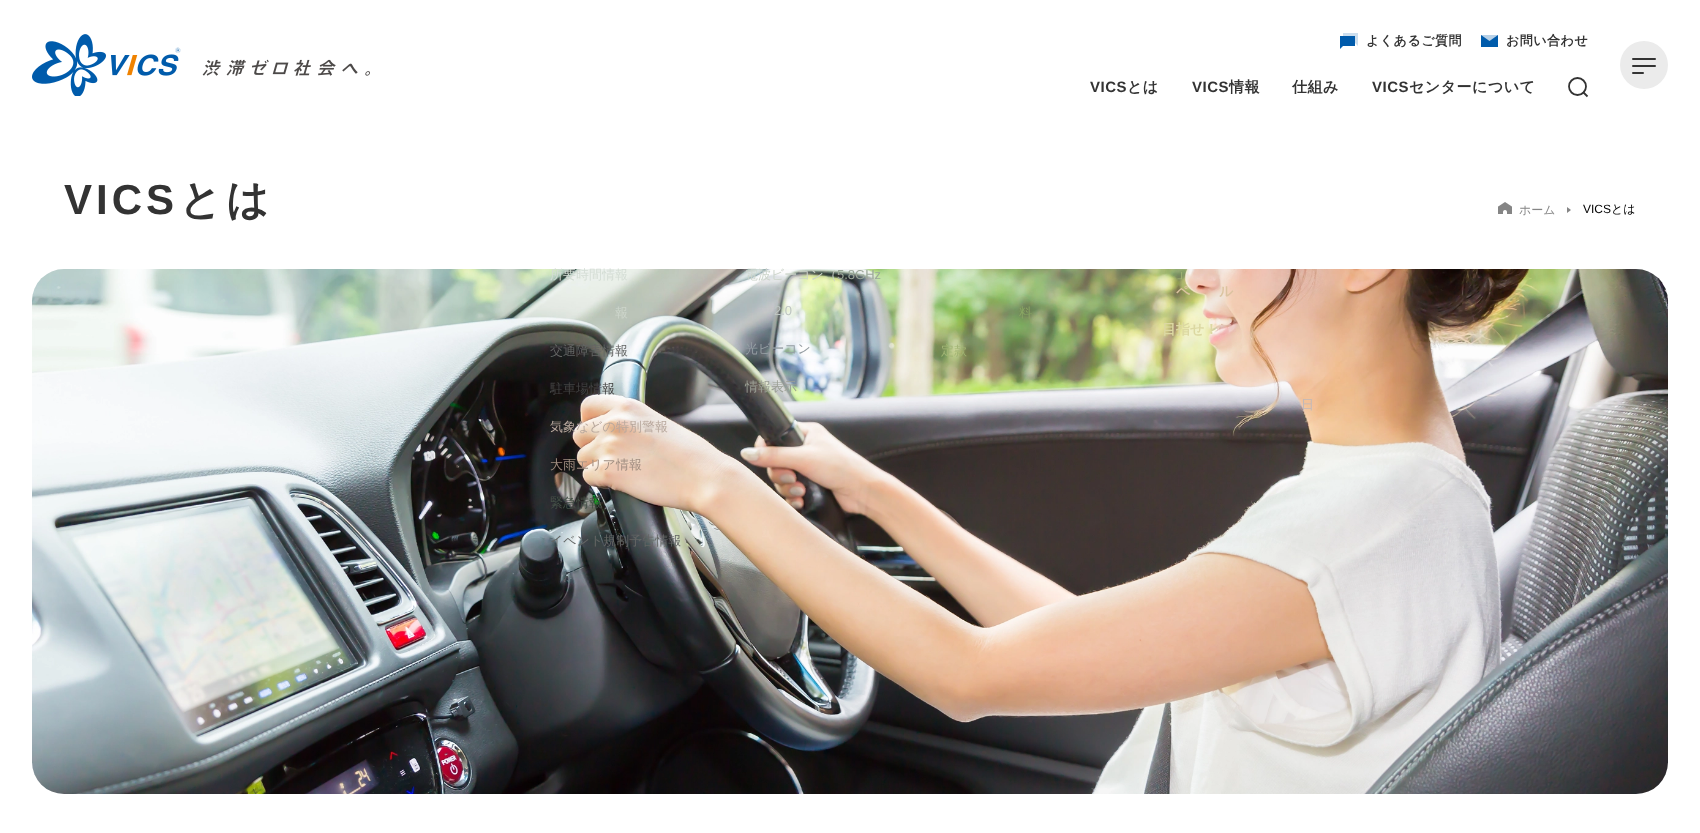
(async () => {
  const canvas = document.querySelector("canvas");
  canvas.width = 1700;
  canvas.height = 833;
  const ctx = canvas.getContext("2d");
  ctx.miterLimit = 4;
  ctx.fontKerning = "normal";
  async function loadImage(src) {
    const img = new Image();
    img.src = src;
    await img.decode();
    return img;
  }
  let path;

  ctx.fillStyle = "#ffffff";
  ctx.fillRect(0, 0, 1700, 833);
  ctx.drawImage(await loadImage("img/1.png"), 32, 34, 338, 62);
  ctx.drawImage(await loadImage("img/2.png"), 1340, 33, 18, 16);
  ctx.fillStyle = "#005bab";
  ctx.fillRect(1481, 35, 17, 12);
  ctx.fillStyle = "#b8d1e7";
  path = new Path2D("M1489.5 41L1481 35H1498Z");
  ctx.fill(path);
  ctx.beginPath();
  ctx.arc(1577.5, 86.5, 8.5, 0, Math.PI * 2);
  ctx.strokeStyle = "#333333";
  ctx.lineWidth = 1.8;
  ctx.stroke();
  path = new Path2D("M1583 92L1587.5 96.5");
  ctx.stroke(path);
  ctx.fillStyle = "#ebebeb";
  ctx.beginPath();
  ctx.arc(1644, 65, 24, 0, Math.PI * 2);
  ctx.fill();
  ctx.fillStyle = "#333333";
  ctx.beginPath();
  ctx.roundRect(1632, 58, 24, 2, 1);
  ctx.fill();
  ctx.beginPath();
  ctx.roundRect(1632, 65, 24, 2, 1);
  ctx.fill();
  ctx.beginPath();
  ctx.roundRect(1632, 72, 12, 2, 1);
  ctx.fill();
  ctx.drawImage(await loadImage("img/3.png"), 1498, 202, 14, 12);
  ctx.fillStyle = "#858585";
  path = new Path2D("M1567 213V207L1571 210Z");
  ctx.fill(path);
  ctx.drawImage(await loadImage("img/4.png"), 32, 269, 1636, 525);
  ctx.letterSpacing = "0.5px";
  ctx.font = "bold 13px WenQuanYi Zen Hei";
  ctx.fillStyle = "#333333";
  ctx.fillText("よくあるご質問", 1366, 45);
  ctx.fillText("お問い合わせ", 1506, 45);
  ctx.font = "bold 15px Liberation Sans";
  ctx.fillText("VICS", 1090, 92);
  ctx.font = "bold 15px WenQuanYi Zen Hei";
  ctx.fillText("とは", 1127, 92);
  ctx.font = "bold 15px Liberation Sans";
  ctx.fillText("VICS", 1192, 92);
  ctx.font = "bold 15px WenQuanYi Zen Hei";
  ctx.fillText("情報", 1229, 92);
  ctx.fillText("仕組み", 1292, 92);
  ctx.font = "bold 15px Liberation Sans";
  ctx.fillText("VICS", 1372, 92);
  ctx.font = "bold 15px WenQuanYi Zen Hei";
  ctx.fillText("センターについて", 1409, 92);
  ctx.letterSpacing = "0px";
  ctx.font = "500 13px WenQuanYi Zen Hei";
  ctx.fillStyle = "#d4ddd5";
  ctx.fillText("所要時間情報", 550, 279);
  ctx.fillStyle = "#cdd5cb";
  ctx.fillText("報", 615, 317);
  ctx.fillStyle = "#636564";
  ctx.fillText("交通障害情報", 550, 355);
  ctx.fillStyle = "#424242";
  ctx.fillText("駐車場情報", 550, 393);
  ctx.fillStyle = "#b8a89d";
  ctx.fillText("気象などの特別警報", 550, 431);
  ctx.fillStyle = "#a18e81";
  ctx.fillText("大雨エリア情報", 550, 469);
  ctx.fillStyle = "#444f46";
  ctx.fillText("緊急情報", 550, 507);
  ctx.fillStyle = "#636564";
  ctx.fillText("イベント規制予告情報", 550, 545);
  ctx.fillStyle = "#cdd5cb";
  ctx.fillText("電波ビーコン（", 745, 279);
  ctx.font = "13px Liberation Sans";
  ctx.fillStyle = "#9ba799";
  ctx.fillText("5.8GHz", 837, 279);
  ctx.fillStyle = "#bec5c2";
  ctx.fillText("2.0", 774, 315);
  ctx.font = "500 13px WenQuanYi Zen Hei";
  ctx.fillStyle = "#949da2";
  ctx.fillText("光ビーコン", 745, 353);
  ctx.fillStyle = "#9ca096";
  ctx.fillText("情報表示", 745, 391);
  ctx.fillStyle = "#89a663";
  ctx.fillText("料", 1019, 317);
  ctx.fillStyle = "#a1b474";
  ctx.fillText("定款", 941, 355);
  ctx.font = "bold 14px WenQuanYi Zen Hei";
  ctx.fillText("」", 1176, 278);
  ctx.fillStyle = "#dbc3a0";
  ctx.fillText("ペ", 1176, 296);
  ctx.fillText("ル", 1219, 296);
  ctx.fillStyle = "#dcd8a2";
  ctx.fillText("目指せ！", 1162, 334);
  ctx.font = "500 13px WenQuanYi Zen Hei";
  ctx.fillStyle = "#bfb8bb";
  ctx.fillText("日", 1301, 409);
  ctx.letterSpacing = "4px";
  ctx.font = "bold 42px Liberation Sans";
  ctx.fillStyle = "#333333";
  ctx.fillText("VICS", 64, 214);
  ctx.font = "bold 42px WenQuanYi Zen Hei";
  ctx.fillText("とは", 179, 214);
  ctx.letterSpacing = "0px";
  ctx.font = "500 12px WenQuanYi Zen Hei";
  ctx.fillStyle = "#858585";
  ctx.fillText("ホーム", 1519, 214);
  ctx.font = "12px Liberation Sans";
  ctx.fillStyle = "#000000";
  ctx.fillText("VICS", 1583, 213);
  ctx.font = "500 12px WenQuanYi Zen Hei";
  ctx.fillText("とは", 1611, 213);
})();
